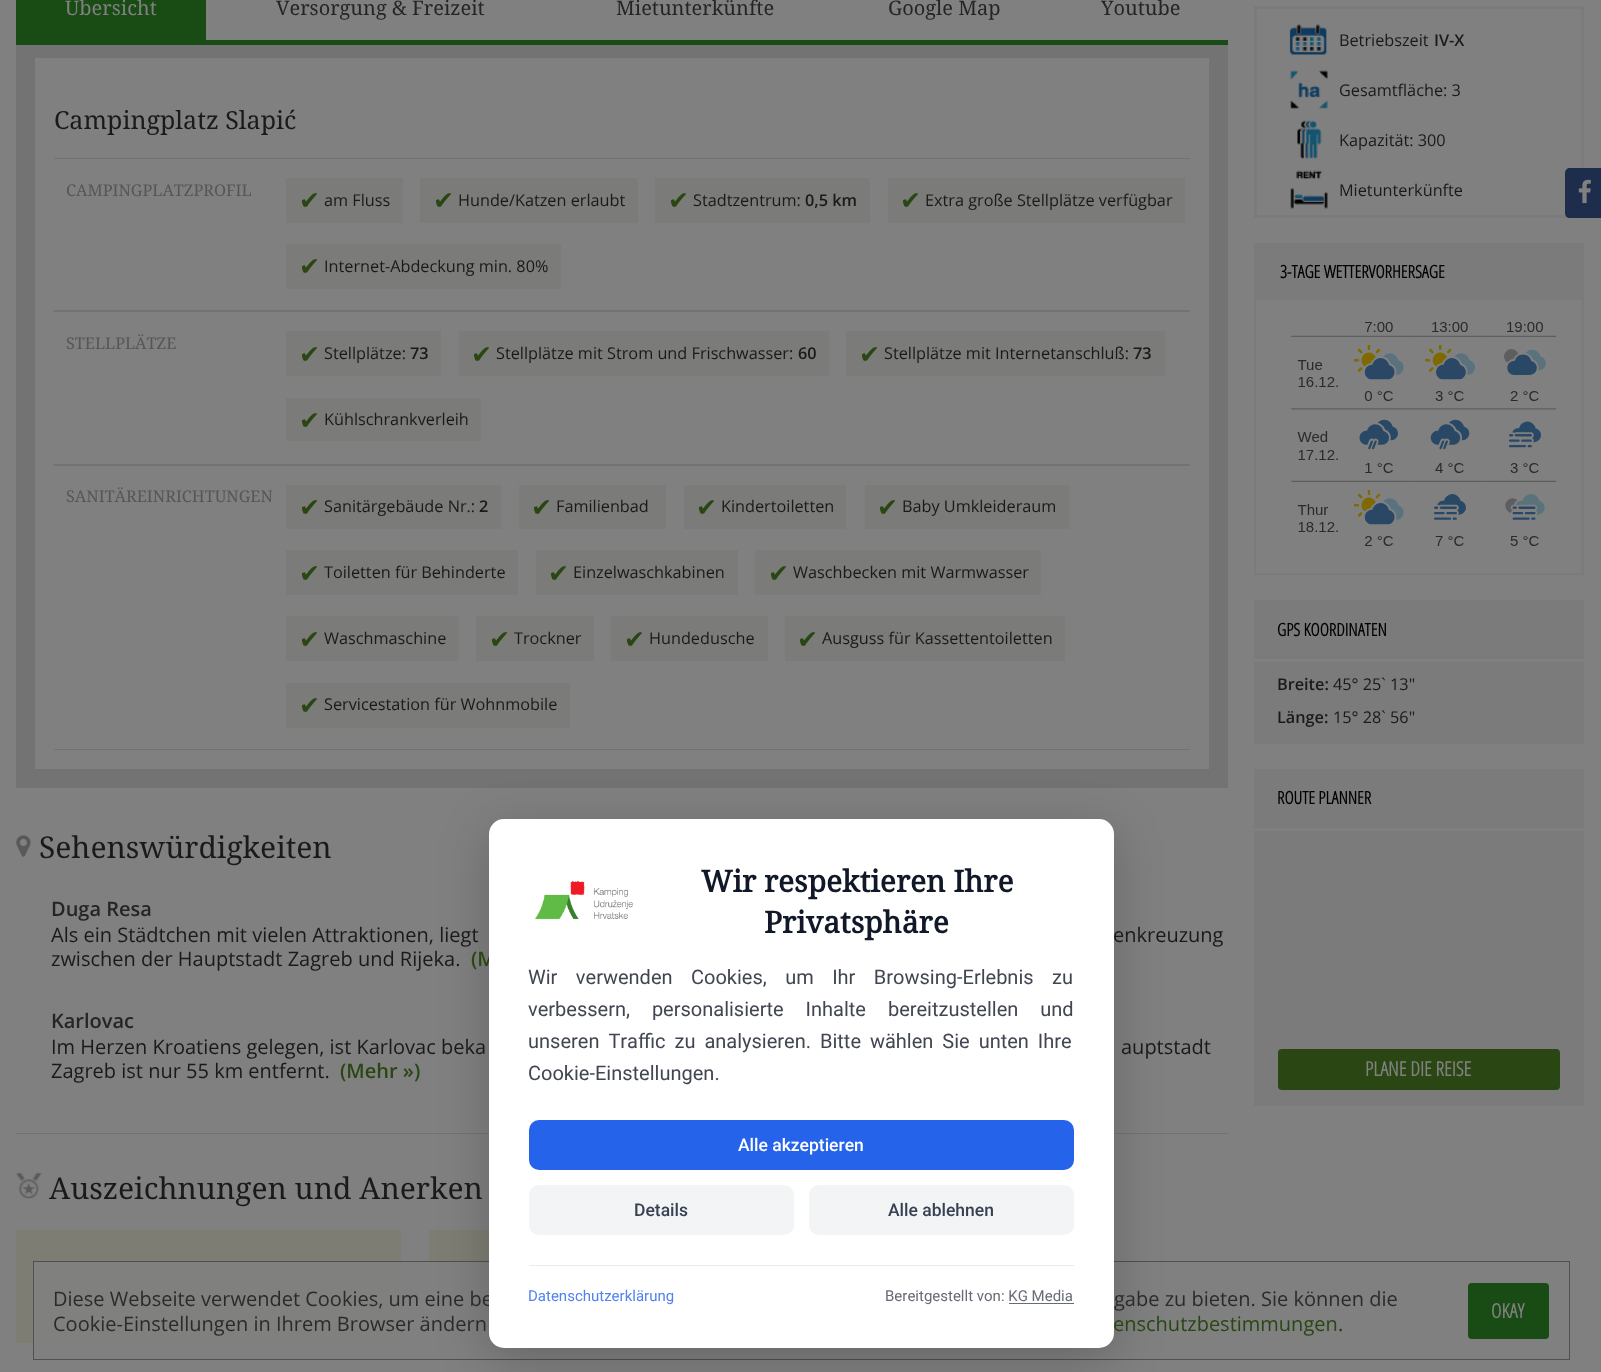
(async () => {
  const canvas = document.querySelector("canvas");
  canvas.width = 1601;
  canvas.height = 1372;
  const ctx = canvas.getContext("2d");
  ctx.miterLimit = 4;
  ctx.fontKerning = "none";
  async function loadImage(src) {
    const img = new Image();
    img.src = src;
    await img.decode();
    return img;
  }
  let path;

  ctx.fillStyle = "#808080";
  ctx.fillRect(0, 0, 1601, 1372);
  for (const [x, y, w, h, color] of [
    [16, 0, 190, 40, "#194b14"],
    [16, 45, 1212, 743, "#747373"],
    [16, 40, 1212, 5, "#194b14"],
    [35, 58, 1174, 711, "#808080"],
    [54, 158, 1136, 1, "#727272"],
    [54, 310, 1136, 2, "#727272"],
    [286, 178, 117, 45, "#7b7c79"],
    [420, 178, 218, 45, "#7b7c79"],
    [655, 178, 215, 45, "#7b7c79"],
    [888, 178, 297, 45, "#7b7c79"],
    [286, 244, 275, 45, "#7b7c79"],
    [54, 464, 1136, 2, "#727272"],
    [286, 331, 155, 45, "#7b7c79"],
    [459, 331, 370, 45, "#7b7c79"],
    [846, 331, 319, 45, "#7b7c79"],
    [286, 398, 195, 43, "#7b7c79"],
    [54, 749, 1136, 1, "#727272"],
    [286, 485, 215, 44, "#7b7c79"],
    [519, 485, 147, 44, "#7b7c79"],
    [684, 485, 162, 44, "#7b7c79"],
    [865, 485, 204, 44, "#7b7c79"],
    [286, 550, 232, 45, "#7b7c79"],
    [536, 550, 202, 45, "#7b7c79"],
    [755, 550, 286, 45, "#7b7c79"],
    [286, 616, 173, 45, "#7b7c79"],
    [476, 616, 118, 45, "#7b7c79"],
    [611, 616, 157, 45, "#7b7c79"],
    [785, 616, 280, 45, "#7b7c79"],
    [286, 683, 284, 45, "#7b7c79"],
  ]) {
    ctx.fillStyle = color;
    ctx.fillRect(x, y, w, h);
  }
  ctx.drawImage(await loadImage("img/1.png"), 16, 835, 15, 22);
  ctx.fillStyle = "#727272";
  ctx.fillRect(16, 1133, 1212, 1);
  ctx.drawImage(await loadImage("img/2.png"), 16, 1173, 26, 26);
  for (const [x, y, w, h, color] of [
    [16, 1230, 385, 113, "#7e7d73"],
    [34, 1262, 367, 81, "#80807f"],
    [429, 1230, 60, 31, "#7e7d73"],
  ]) {
    ctx.fillStyle = color;
    ctx.fillRect(x, y, w, h);
  }
  ctx.strokeStyle = "#7b7c79";
  ctx.lineWidth = 3;
  ctx.strokeRect(1255.5, 7.5, 327, 209);
  ctx.drawImage(await loadImage("img/3.png"), 1289, 24, 39, 31);
  ctx.drawImage(await loadImage("img/4.png"), 1290, 70, 38, 39);
  ctx.drawImage(await loadImage("img/5.png"), 1297, 120, 25, 39);
  ctx.drawImage(await loadImage("img/6.png"), 1290, 170, 38, 39);
  ctx.fillStyle = "#7b7b7b";
  ctx.fillRect(1254, 243, 330, 332);
  ctx.fillStyle = "#808080";
  ctx.fillRect(1256, 300, 325, 273);
  ctx.drawImage(await loadImage("img/7.png"), 1291, 322, 266, 224);
  for (const [x, y, w, h, color] of [
    [1254, 600, 330, 144, "#7b7b7b"],
    [1254, 659, 330, 3, "#808080"],
    [1254, 769, 330, 337, "#7b7b7b"],
    [1254, 828, 330, 3, "#808080"],
  ]) {
    ctx.fillStyle = color;
    ctx.fillRect(x, y, w, h);
  }
  ctx.fillStyle = "#294613";
  ctx.beginPath();
  ctx.roundRect(1278, 1049, 282, 41, 4);
  ctx.fill();
  ctx.fillStyle = "#1e2d4c";
  path = new Path2D("M1570 168H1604V218H1570C1567 218 1565 216 1565 213V173C1565 170 1567 168 1570 168Z");
  ctx.fill(path);
  ctx.drawImage(await loadImage("img/8.png"), 1578, 179, 13, 25);
  ctx.strokeStyle = "#505050";
  ctx.lineWidth = 1;
  ctx.strokeRect(33.5, 1261.5, 1536, 98);
  ctx.fillStyle = "#194b14";
  ctx.beginPath();
  ctx.roundRect(1468, 1283, 81, 56, 4);
  ctx.fill();
  ctx.fillStyle = "rgba(0, 0, 0, 0.2)";
  ctx.filter = "blur(25px)";
  ctx.beginPath();
  ctx.roundRect(489, 831, 625, 529, 15);
  ctx.fill();
  ctx.filter = "none";
  ctx.font = "20px Noto Serif";
  ctx.fillStyle = "#808080";
  ctx.fillText("Übersicht", 65, 15);
  ctx.fillStyle = "#252525";
  for (const [text, x, y] of [
    ["Versorgung & Freizeit", 276, 15],
    ["Mietunterkünfte", 616, 15],
    ["Google Map", 888, 15],
    ["Youtube", 1101, 15],
  ]) {
    ctx.fillText(text, x, y);
  }
  ctx.font = "25px Noto Serif";
  ctx.fillStyle = "#1a1a1a";
  ctx.fillText("Campingplatz Slapić", 54, 129);
  ctx.font = "16.25px Noto Serif";
  ctx.fillStyle = "#565656";
  ctx.fillText("CAMPINGPLATZPROFIL", 66, 196);
  ctx.font = "25px DejaVu Sans";
  ctx.fillStyle = "#294613";
  ctx.fillText("✔︎", 299, 209);
  ctx.font = "16.25px Open Sans";
  ctx.fillStyle = "#1a1a1a";
  ctx.fillText("am Fluss", 324, 206);
  ctx.font = "25px DejaVu Sans";
  ctx.fillStyle = "#294613";
  ctx.fillText("✔︎", 433, 209);
  ctx.font = "16.25px Open Sans";
  ctx.fillStyle = "#1a1a1a";
  ctx.fillText("Hunde/Katzen erlaubt", 458, 206);
  ctx.font = "25px DejaVu Sans";
  ctx.fillStyle = "#294613";
  ctx.fillText("✔︎", 668, 209);
  ctx.font = "16.25px Open Sans";
  ctx.fillStyle = "#1a1a1a";
  ctx.fillText("Stadtzentrum:", 693, 206);
  ctx.font = "600 16.25px Open Sans";
  ctx.fillText("0,5 km", 805, 206);
  ctx.font = "25px DejaVu Sans";
  ctx.fillStyle = "#294613";
  ctx.fillText("✔︎", 900, 209);
  ctx.font = "16.25px Open Sans";
  ctx.fillStyle = "#1a1a1a";
  ctx.fillText("Extra große Stellplätze verfügbar", 925, 206);
  ctx.font = "25px DejaVu Sans";
  ctx.fillStyle = "#294613";
  ctx.fillText("✔︎", 299, 275);
  ctx.font = "16.25px Open Sans";
  ctx.fillStyle = "#1a1a1a";
  ctx.fillText("Internet-Abdeckung min. 80%", 324, 272);
  ctx.font = "16.25px Noto Serif";
  ctx.fillStyle = "#565656";
  ctx.fillText("STELLPLÄTZE", 66, 349);
  ctx.font = "25px DejaVu Sans";
  ctx.fillStyle = "#294613";
  ctx.fillText("✔︎", 299, 363);
  ctx.font = "16.25px Open Sans";
  ctx.fillStyle = "#1a1a1a";
  ctx.fillText("Stellplätze:", 324, 359);
  ctx.font = "600 16.25px Open Sans";
  ctx.fillText("73", 410, 359);
  ctx.font = "25px DejaVu Sans";
  ctx.fillStyle = "#294613";
  ctx.fillText("✔︎", 471, 363);
  ctx.font = "16.25px Open Sans";
  ctx.fillStyle = "#1a1a1a";
  ctx.fillText("Stellplätze mit Strom und Frischwasser:", 496, 359);
  ctx.font = "600 16.25px Open Sans";
  ctx.fillText("60", 798, 359);
  ctx.font = "25px DejaVu Sans";
  ctx.fillStyle = "#294613";
  ctx.fillText("✔︎", 859, 363);
  ctx.font = "16.25px Open Sans";
  ctx.fillStyle = "#1a1a1a";
  ctx.fillText("Stellplätze mit Internetanschluß:", 884, 359);
  ctx.font = "600 16.25px Open Sans";
  ctx.fillText("73", 1133, 359);
  ctx.font = "25px DejaVu Sans";
  ctx.fillStyle = "#294613";
  ctx.fillText("✔︎", 299, 429);
  ctx.font = "16.25px Open Sans";
  ctx.fillStyle = "#1a1a1a";
  ctx.fillText("Kühlschrankverleih", 324, 425);
  ctx.font = "16.25px Noto Serif";
  ctx.fillStyle = "#565656";
  ctx.fillText("SANITÄREINRICHTUNGEN", 66, 502);
  ctx.font = "25px DejaVu Sans";
  ctx.fillStyle = "#294613";
  ctx.fillText("✔︎", 299, 516);
  ctx.font = "16.25px Open Sans";
  ctx.fillStyle = "#1a1a1a";
  ctx.fillText("Sanitärgebäude Nr.:", 324, 512);
  ctx.font = "600 16.25px Open Sans";
  ctx.fillText("2", 479, 512);
  ctx.font = "25px DejaVu Sans";
  ctx.fillStyle = "#294613";
  ctx.fillText("✔︎", 531, 516);
  ctx.font = "16.25px Open Sans";
  ctx.fillStyle = "#1a1a1a";
  ctx.fillText("Familienbad", 556, 512);
  ctx.font = "25px DejaVu Sans";
  ctx.fillStyle = "#294613";
  ctx.fillText("✔︎", 696, 516);
  ctx.font = "16.25px Open Sans";
  ctx.fillStyle = "#1a1a1a";
  ctx.fillText("Kindertoiletten", 721, 512);
  ctx.font = "25px DejaVu Sans";
  ctx.fillStyle = "#294613";
  ctx.fillText("✔︎", 877, 516);
  ctx.font = "16.25px Open Sans";
  ctx.fillStyle = "#1a1a1a";
  ctx.fillText("Baby Umkleideraum", 902, 512);
  ctx.font = "25px DejaVu Sans";
  ctx.fillStyle = "#294613";
  ctx.fillText("✔︎", 299, 582);
  ctx.font = "16.25px Open Sans";
  ctx.fillStyle = "#1a1a1a";
  ctx.fillText("Toiletten für Behinderte", 324, 578);
  ctx.font = "25px DejaVu Sans";
  ctx.fillStyle = "#294613";
  ctx.fillText("✔︎", 548, 582);
  ctx.font = "16.25px Open Sans";
  ctx.fillStyle = "#1a1a1a";
  ctx.fillText("Einzelwaschkabinen", 573, 578);
  ctx.font = "25px DejaVu Sans";
  ctx.fillStyle = "#294613";
  ctx.fillText("✔︎", 768, 582);
  ctx.font = "16.25px Open Sans";
  ctx.fillStyle = "#1a1a1a";
  ctx.fillText("Waschbecken mit Warmwasser", 793, 578);
  ctx.font = "25px DejaVu Sans";
  ctx.fillStyle = "#294613";
  ctx.fillText("✔︎", 299, 648);
  ctx.font = "16.25px Open Sans";
  ctx.fillStyle = "#1a1a1a";
  ctx.fillText("Waschmaschine", 324, 644);
  ctx.font = "25px DejaVu Sans";
  ctx.fillStyle = "#294613";
  ctx.fillText("✔︎", 489, 648);
  ctx.font = "16.25px Open Sans";
  ctx.fillStyle = "#1a1a1a";
  ctx.fillText("Trockner", 514, 644);
  ctx.font = "25px DejaVu Sans";
  ctx.fillStyle = "#294613";
  ctx.fillText("✔︎", 624, 648);
  ctx.font = "16.25px Open Sans";
  ctx.fillStyle = "#1a1a1a";
  ctx.fillText("Hundedusche", 649, 644);
  ctx.font = "25px DejaVu Sans";
  ctx.fillStyle = "#294613";
  ctx.fillText("✔︎", 797, 648);
  ctx.font = "16.25px Open Sans";
  ctx.fillStyle = "#1a1a1a";
  ctx.fillText("Ausguss für Kassettentoiletten", 822, 644);
  ctx.font = "25px DejaVu Sans";
  ctx.fillStyle = "#294613";
  ctx.fillText("✔︎", 299, 714);
  ctx.font = "16.25px Open Sans";
  ctx.fillStyle = "#1a1a1a";
  ctx.fillText("Servicestation für Wohnmobile", 324, 710);
  ctx.font = "30px Noto Serif";
  ctx.fillText("Sehenswürdigkeiten", 39, 858);
  ctx.font = "600 20px Open Sans";
  ctx.fillStyle = "#252525";
  ctx.fillText("Duga Resa", 51, 916);
  ctx.font = "20px Open Sans";
  ctx.fillStyle = "#1a1a1a";
  for (const [text, x, y] of [
    ["Als ein Städtchen mit vielen Attraktionen, liegt", 51, 942],
    ["enkreuzung", 1113, 942],
    ["zwischen der Hauptstadt Zagreb und Rijeka.", 51, 966],
  ]) {
    ctx.fillText(text, x, y);
  }
  ctx.font = "600 20px Open Sans";
  ctx.fillStyle = "#294613";
  ctx.fillText("(M", 471, 966);
  ctx.fillStyle = "#252525";
  ctx.fillText("Karlovac", 51, 1028);
  ctx.font = "20px Open Sans";
  ctx.fillStyle = "#1a1a1a";
  for (const [text, x, y] of [
    ["Im Herzen Kroatiens gelegen, ist Karlovac beka", 51, 1054],
    ["auptstadt", 1121, 1054],
    ["Zagreb ist nur 55 km entfernt.", 51, 1078],
  ]) {
    ctx.fillText(text, x, y);
  }
  ctx.font = "600 20px Open Sans";
  ctx.fillStyle = "#294613";
  ctx.fillText("(Mehr »)", 340, 1078);
  ctx.font = "30px Noto Serif";
  ctx.fillStyle = "#1a1a1a";
  ctx.fillText("Auszeichnungen und Anerken", 49, 1199);
  ctx.font = "16.25px Open Sans";
  ctx.fillText("Betriebszeit", 1339, 46);
  ctx.font = "600 16.25px Open Sans";
  ctx.fillText("IV-X", 1434, 46);
  ctx.font = "16.25px Open Sans";
  for (const [text, x, y] of [
    ["Gesamtfläche: 3", 1339, 96],
    ["Kapazität: 300", 1339, 146],
    ["Mietunterkünfte", 1339, 196],
  ]) {
    ctx.fillText(text, x, y);
  }
  ctx.font = "bold 17.5px Open Sans Condensed";
  ctx.fillStyle = "#000000";
  ctx.fillText("3-TAGE WETTERVORHERSAGE", 1280, 278);
  ctx.fillText("GPS KOORDINATEN", 1277, 636);
  ctx.font = "600 16.25px Open Sans";
  ctx.fillStyle = "#1a1a1a";
  ctx.fillText("Breite:", 1277, 690);
  ctx.font = "16.25px Open Sans";
  ctx.fillText("45° 25` 13\"", 1333, 690);
  ctx.font = "600 16.25px Open Sans";
  ctx.fillText("Länge:", 1277, 723);
  ctx.font = "16.25px Open Sans";
  ctx.fillText("15° 28` 56\"", 1333, 723);
  ctx.font = "bold 17.5px Open Sans Condensed";
  ctx.fillStyle = "#000000";
  ctx.fillText("ROUTE PLANNER", 1277, 804);
  ctx.font = "bold 20px Open Sans Condensed";
  ctx.fillStyle = "#808080";
  ctx.fillText("PLANE DIE REISE", 1365, 1076);
  ctx.font = "20px Open Sans";
  ctx.fillStyle = "#2b2b2b";
  for (const [text, x, y] of [
    ["Diese Webseite verwendet Cookies, um eine be", 53, 1306],
    ["gabe zu bieten. Sie können die", 1114, 1306],
    ["Cookie-Einstellungen in Ihrem Browser ändern", 53, 1331],
  ]) {
    ctx.fillText(text, x, y);
  }
  ctx.fillStyle = "#294613";
  ctx.fillText("enschutzbestimmungen", 1113, 1331);
  ctx.fillStyle = "#2b2b2b";
  ctx.fillText(".", 1338, 1331);
  ctx.font = "bold 20px Open Sans Condensed";
  ctx.fillStyle = "#808080";
  ctx.fillText("OKAY", 1491, 1318);
  ctx.fillStyle = "#ffffff";
  ctx.beginPath();
  ctx.roundRect(489, 819, 625, 529, 15);
  ctx.fill();
  ctx.drawImage(await loadImage("img/9.png"), 535, 880, 98, 40);
  ctx.font = "bold 30px Noto Serif";
  ctx.fillStyle = "#111827";
  ctx.fillText("Wir respektieren Ihre", 701, 892);
  ctx.fillText("Privatsphäre", 764, 933);
  ctx.wordSpacing = "13.5px";
  ctx.font = "20px Roboto";
  ctx.fillStyle = "#414652";
  ctx.fillText("Wir verwenden Cookies, um Ihr Browsing-Erlebnis zu", 528, 984);
  ctx.wordSpacing = "17px";
  ctx.fillText("verbessern, personalisierte Inhalte bereitzustellen und", 528, 1016);
  ctx.wordSpacing = "4px";
  ctx.fillText("unseren Traffic zu analysieren. Bitte wählen Sie unten Ihre", 528, 1048);
  ctx.wordSpacing = "0px";
  ctx.fillText("Cookie-Einstellungen.", 528, 1080);
  ctx.fillStyle = "#2563eb";
  ctx.beginPath();
  ctx.roundRect(529, 1120, 545, 50, 10);
  ctx.fill();
  ctx.font = "500 17.5px Roboto";
  ctx.fillStyle = "#ffffff";
  ctx.fillText("Alle akzeptieren", 738, 1151);
  ctx.fillStyle = "#f3f4f6";
  ctx.beginPath();
  ctx.roundRect(529, 1185, 265, 50, 10);
  ctx.fill();
  ctx.fillStyle = "#374151";
  ctx.fillText("Details", 634, 1216);
  ctx.fillStyle = "#f3f4f6";
  ctx.beginPath();
  ctx.roundRect(809, 1185, 265, 50, 10);
  ctx.fill();
  ctx.fillStyle = "#374151";
  ctx.fillText("Alle ablehnen", 888, 1216);
  ctx.fillStyle = "#ebebeb";
  ctx.fillRect(529, 1265, 545, 1);
  ctx.font = "15px Roboto";
  ctx.fillStyle = "#5182ef";
  ctx.fillText("Datenschutzerklärung", 528, 1301);
  ctx.fillStyle = "#676b75";
  ctx.fillText("Bereitgestellt von: KG Media", 885, 1301);
  ctx.fillRect(1009, 1303, 65, 1);
})();
